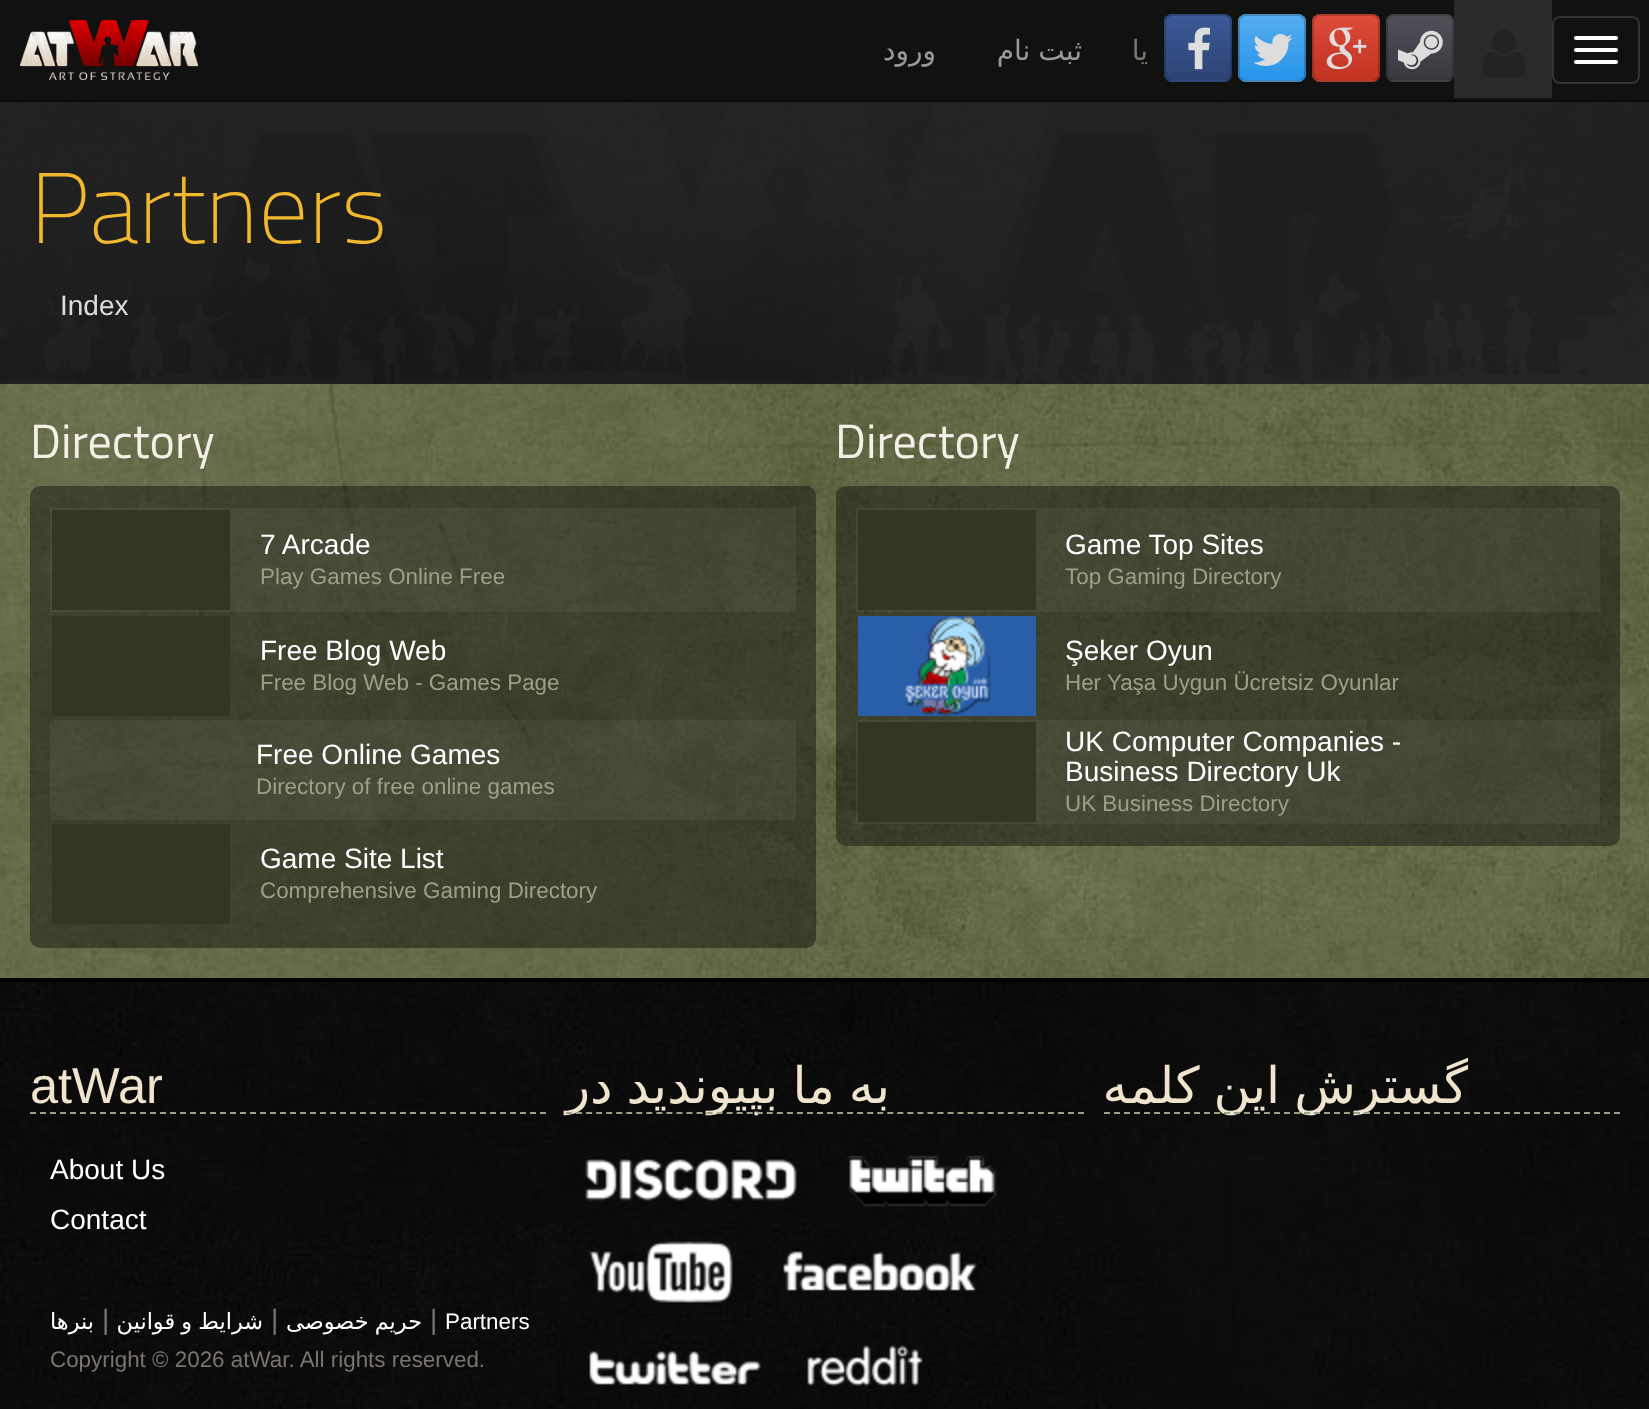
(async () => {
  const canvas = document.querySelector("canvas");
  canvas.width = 1649;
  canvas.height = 1409;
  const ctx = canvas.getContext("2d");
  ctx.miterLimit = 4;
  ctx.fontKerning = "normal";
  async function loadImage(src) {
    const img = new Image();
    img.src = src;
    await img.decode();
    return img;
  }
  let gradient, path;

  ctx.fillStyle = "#ffffff";
  ctx.fillRect(0, 0, 1649, 1409);
  ctx.drawImage(await loadImage("img/1.png"), 0, 384, 1649, 594);
  ctx.fillStyle = "#111111";
  ctx.fillRect(0, 0, 1649, 100);
  ctx.fillStyle = "#080808";
  ctx.fillRect(0, 100, 1649, 2);
  ctx.drawImage(await loadImage("img/2.png"), 20, 20, 178, 60);
  ctx.fillStyle = "#3b5998";
  ctx.beginPath();
  ctx.roundRect(1164, 14, 68, 68, 8);
  ctx.fill();
  ctx.save();
  ctx.beginPath();
  ctx.roundRect(1164, 14, 68, 68, 8);
  ctx.clip();
  gradient = ctx.createLinearGradient(1198, 16, 1198, 80);
  gradient.addColorStop(0, "#3b5998");
  gradient.addColorStop(1, "#2d4373");
  ctx.fillStyle = gradient;
  ctx.fillRect(1164, 16, 68, 64);
  ctx.restore();
  ctx.beginPath();
  ctx.roundRect(1165, 15, 66, 66, 7);
  ctx.strokeStyle = "rgba(0, 0, 0, 0.2)";
  ctx.lineWidth = 2;
  ctx.stroke();
  ctx.drawImage(await loadImage("img/3.png"), 1188, 27, 22, 43);
  ctx.fillStyle = "#55acee";
  ctx.beginPath();
  ctx.roundRect(1238, 14, 68, 68, 8);
  ctx.fill();
  ctx.save();
  ctx.beginPath();
  ctx.roundRect(1238, 14, 68, 68, 8);
  ctx.clip();
  gradient = ctx.createLinearGradient(1272, 16, 1272, 80);
  gradient.addColorStop(0, "#55acee");
  gradient.addColorStop(1, "#2795e9");
  ctx.fillStyle = gradient;
  ctx.fillRect(1238, 16, 68, 64);
  ctx.restore();
  ctx.beginPath();
  ctx.roundRect(1239, 15, 66, 66, 7);
  ctx.stroke();
  ctx.drawImage(await loadImage("img/4.png"), 1253, 34, 40, 32);
  ctx.fillStyle = "#dd4b39";
  ctx.beginPath();
  ctx.roundRect(1312, 14, 68, 68, 8);
  ctx.fill();
  ctx.save();
  ctx.beginPath();
  ctx.roundRect(1312, 14, 68, 68, 8);
  ctx.clip();
  gradient = ctx.createLinearGradient(1346, 16, 1346, 80);
  gradient.addColorStop(0, "#dd4b39");
  gradient.addColorStop(1, "#c23321");
  ctx.fillStyle = gradient;
  ctx.fillRect(1312, 16, 68, 64);
  ctx.restore();
  ctx.beginPath();
  ctx.roundRect(1313, 15, 66, 66, 7);
  ctx.stroke();
  ctx.drawImage(await loadImage("img/5.png"), 1326, 27, 41, 43);
  ctx.fillStyle = "#505059";
  ctx.beginPath();
  ctx.roundRect(1386, 14, 68, 68, 8);
  ctx.fill();
  ctx.save();
  ctx.beginPath();
  ctx.roundRect(1386, 14, 68, 68, 8);
  ctx.clip();
  gradient = ctx.createLinearGradient(1420, 16, 1420, 80);
  gradient.addColorStop(0, "#505059");
  gradient.addColorStop(1, "#38383e");
  ctx.fillStyle = gradient;
  ctx.fillRect(1386, 16, 68, 64);
  ctx.restore();
  ctx.beginPath();
  ctx.roundRect(1387, 15, 66, 66, 7);
  ctx.stroke();
  ctx.drawImage(await loadImage("img/6.png"), 1398, 30, 45, 40);
  ctx.fillStyle = "#2a2a2a";
  ctx.fillRect(1454, 0, 98, 98);
  ctx.drawImage(await loadImage("img/7.png"), 1482, 30, 44, 48);
  ctx.beginPath();
  ctx.roundRect(1553, 17, 86, 66, 7);
  ctx.strokeStyle = "#333333";
  ctx.stroke();
  ctx.fillStyle = "#ffffff";
  ctx.beginPath();
  ctx.roundRect(1574, 36, 44, 4, 2);
  ctx.fill();
  ctx.beginPath();
  ctx.roundRect(1574, 48, 44, 4, 2);
  ctx.fill();
  ctx.beginPath();
  ctx.roundRect(1574, 60, 44, 4, 2);
  ctx.fill();
  ctx.drawImage(await loadImage("img/8.png"), 0, 102, 1649, 282);
  ctx.fillStyle = "rgba(0, 0, 0, 0.4)";
  ctx.beginPath();
  ctx.roundRect(30, 486, 786, 462, 10);
  ctx.fill();
  for (const [x, y, w, h, color] of [
    [50, 508, 746, 104, "rgba(255, 255, 255, 0.05)"],
    [52, 510, 178, 100, "#333620"],
    [52, 616, 178, 100, "#333620"],
    [50, 720, 746, 100, "rgba(255, 255, 255, 0.05)"],
    [52, 824, 178, 100, "#333620"],
  ]) {
    ctx.fillStyle = color;
    ctx.fillRect(x, y, w, h);
  }
  ctx.fillStyle = "rgba(0, 0, 0, 0.4)";
  ctx.beginPath();
  ctx.roundRect(836, 486, 784, 360, 10);
  ctx.fill();
  ctx.fillStyle = "rgba(255, 255, 255, 0.05)";
  ctx.fillRect(856, 508, 744, 104);
  ctx.fillStyle = "#333620";
  ctx.fillRect(858, 510, 178, 100);
  ctx.drawImage(await loadImage("img/9.png"), 858, 616, 178, 100);
  ctx.fillStyle = "rgba(255, 255, 255, 0.05)";
  ctx.fillRect(856, 720, 744, 104);
  ctx.fillStyle = "#333620";
  ctx.fillRect(858, 722, 178, 100);
  ctx.drawImage(await loadImage("img/10.png"), 0, 982, 1649, 427);
  ctx.fillStyle = "#000000";
  ctx.fillRect(0, 978, 1649, 4);
  path = new Path2D("M30 1113H546");
  ctx.strokeStyle = "#9ca185";
  ctx.setLineDash([6, 4]);
  ctx.stroke(path);
  ctx.drawImage(await loadImage("img/11.png"), 585, 1159, 212, 42);
  ctx.drawImage(await loadImage("img/12.png"), 847, 1155, 150, 52);
  ctx.drawImage(await loadImage("img/13.png"), 589, 1241, 144, 62);
  ctx.drawImage(await loadImage("img/14.png"), 783, 1251, 194, 40);
  ctx.drawImage(await loadImage("img/15.png"), 589, 1351, 172, 34);
  ctx.drawImage(await loadImage("img/16.png"), 807, 1345, 116, 42);
  ctx.direction = "rtl";
  ctx.font = "28px DejaVu Sans";
  ctx.fillStyle = "#999999";
  ctx.fillText("ورود", 936, 60);
  ctx.wordSpacing = "-1px";
  ctx.fillText("ثبت نام", 1082, 60);
  ctx.wordSpacing = "0px";
  ctx.fillStyle = "#7a756d";
  ctx.fillText("یا", 1148, 60);
  ctx.direction = "ltr";
  ctx.font = "200 100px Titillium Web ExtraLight";
  ctx.fillStyle = "#f1b82f";
  ctx.fillText("Partners", 30, 243);
  ctx.font = "28px Liberation Sans";
  ctx.fillStyle = "#dddddd";
  ctx.fillText("Index", 60, 315);
  ctx.font = "48px Titillium Web";
  ctx.fillStyle = "#f4f0e7";
  ctx.fillText("Directory", 30, 458);
  ctx.font = "28px Liberation Sans";
  ctx.fillStyle = "#ffffff";
  ctx.fillText("7 Arcade", 260, 554);
  ctx.font = "22.4px Liberation Sans";
  ctx.fillStyle = "#9ca185";
  ctx.fillText("Play Games Online Free", 260, 584);
  ctx.font = "28px Liberation Sans";
  ctx.fillStyle = "#ffffff";
  ctx.fillText("Free Blog Web", 260, 660);
  ctx.font = "22.4px Liberation Sans";
  ctx.fillStyle = "#9ca185";
  ctx.fillText("Free Blog Web - Games Page", 260, 690);
  ctx.font = "28px Liberation Sans";
  ctx.fillStyle = "#ffffff";
  ctx.fillText("Free Online Games", 256, 764);
  ctx.font = "22.4px Liberation Sans";
  ctx.fillStyle = "#9ca185";
  ctx.fillText("Directory of free online games", 256, 794);
  ctx.font = "28px Liberation Sans";
  ctx.fillStyle = "#ffffff";
  ctx.fillText("Game Site List", 260, 868);
  ctx.font = "22.4px Liberation Sans";
  ctx.fillStyle = "#9ca185";
  ctx.fillText("Comprehensive Gaming Directory", 260, 898);
  ctx.font = "48px Titillium Web";
  ctx.fillStyle = "#f4f0e7";
  ctx.fillText("Directory", 835, 458);
  ctx.font = "28px Liberation Sans";
  ctx.fillStyle = "#ffffff";
  ctx.fillText("Game Top Sites", 1065, 554);
  ctx.font = "22.4px Liberation Sans";
  ctx.fillStyle = "#9ca185";
  ctx.fillText("Top Gaming Directory", 1065, 584);
  ctx.font = "28px Liberation Sans";
  ctx.fillStyle = "#ffffff";
  ctx.fillText("Şeker Oyun", 1065, 660);
  ctx.font = "22.4px Liberation Sans";
  ctx.fillStyle = "#9ca185";
  ctx.fillText("Her Yaşa Uygun Ücretsiz Oyunlar", 1065, 690);
  ctx.font = "28px Liberation Sans";
  ctx.fillStyle = "#ffffff";
  ctx.fillText("UK Computer Companies -", 1065, 751);
  ctx.fillText("Business Directory Uk", 1065, 781);
  ctx.font = "22.4px Liberation Sans";
  ctx.fillStyle = "#9ca185";
  ctx.fillText("UK Business Directory", 1065, 811);
  ctx.font = "50.5px Liberation Sans";
  ctx.fillStyle = "#f0e4ce";
  ctx.fillText("atWar", 30, 1103);
  ctx.font = "28px Liberation Sans";
  ctx.fillStyle = "#ffffff";
  ctx.fillText("About Us", 50, 1179);
  ctx.fillText("Contact", 50, 1229);
  ctx.direction = "rtl";
  ctx.font = "22.4px DejaVu Sans";
  ctx.fillText("بنرها", 94, 1329);
  ctx.direction = "ltr";
  ctx.font = "28px Liberation Sans";
  ctx.fillStyle = "#7a756d";
  ctx.fillText("|", 102, 1329);
  ctx.wordSpacing = "-1px";
  ctx.direction = "rtl";
  ctx.font = "22.4px DejaVu Sans";
  ctx.fillStyle = "#ffffff";
  ctx.fillText("شرایط و قوانین", 263, 1329);
  ctx.wordSpacing = "0px";
  ctx.direction = "ltr";
  ctx.font = "28px Liberation Sans";
  ctx.fillStyle = "#7a756d";
  ctx.fillText("|", 271, 1329);
  ctx.wordSpacing = "-1px";
  ctx.direction = "rtl";
  ctx.font = "22.4px DejaVu Sans";
  ctx.fillStyle = "#ffffff";
  ctx.fillText("حریم خصوصی", 422, 1329);
  ctx.wordSpacing = "0px";
  ctx.direction = "ltr";
  ctx.font = "28px Liberation Sans";
  ctx.fillStyle = "#7a756d";
  ctx.fillText("|", 430, 1329);
  ctx.font = "22.4px Liberation Sans";
  ctx.fillStyle = "#ffffff";
  ctx.fillText("Partners", 445, 1329);
  ctx.fillStyle = "#7a756d";
  ctx.fillText("Copyright © 2026 atWar. All rights reserved.", 50, 1367);
  ctx.wordSpacing = "-2px";
  ctx.direction = "rtl";
  ctx.font = "50.5px DejaVu Sans";
  ctx.fillStyle = "#f0e4ce";
  ctx.fillText("به ما بپیوندید در", 890, 1103);
  path = new Path2D("M566 1113H1084");
  ctx.setLineDash([6, 4.04]);
  ctx.stroke(path);
  ctx.fillText("گسترش این کلمه", 1468, 1103);
  path = new Path2D("M1104 1113H1620");
  ctx.setLineDash([6, 4]);
  ctx.stroke(path);
})();
